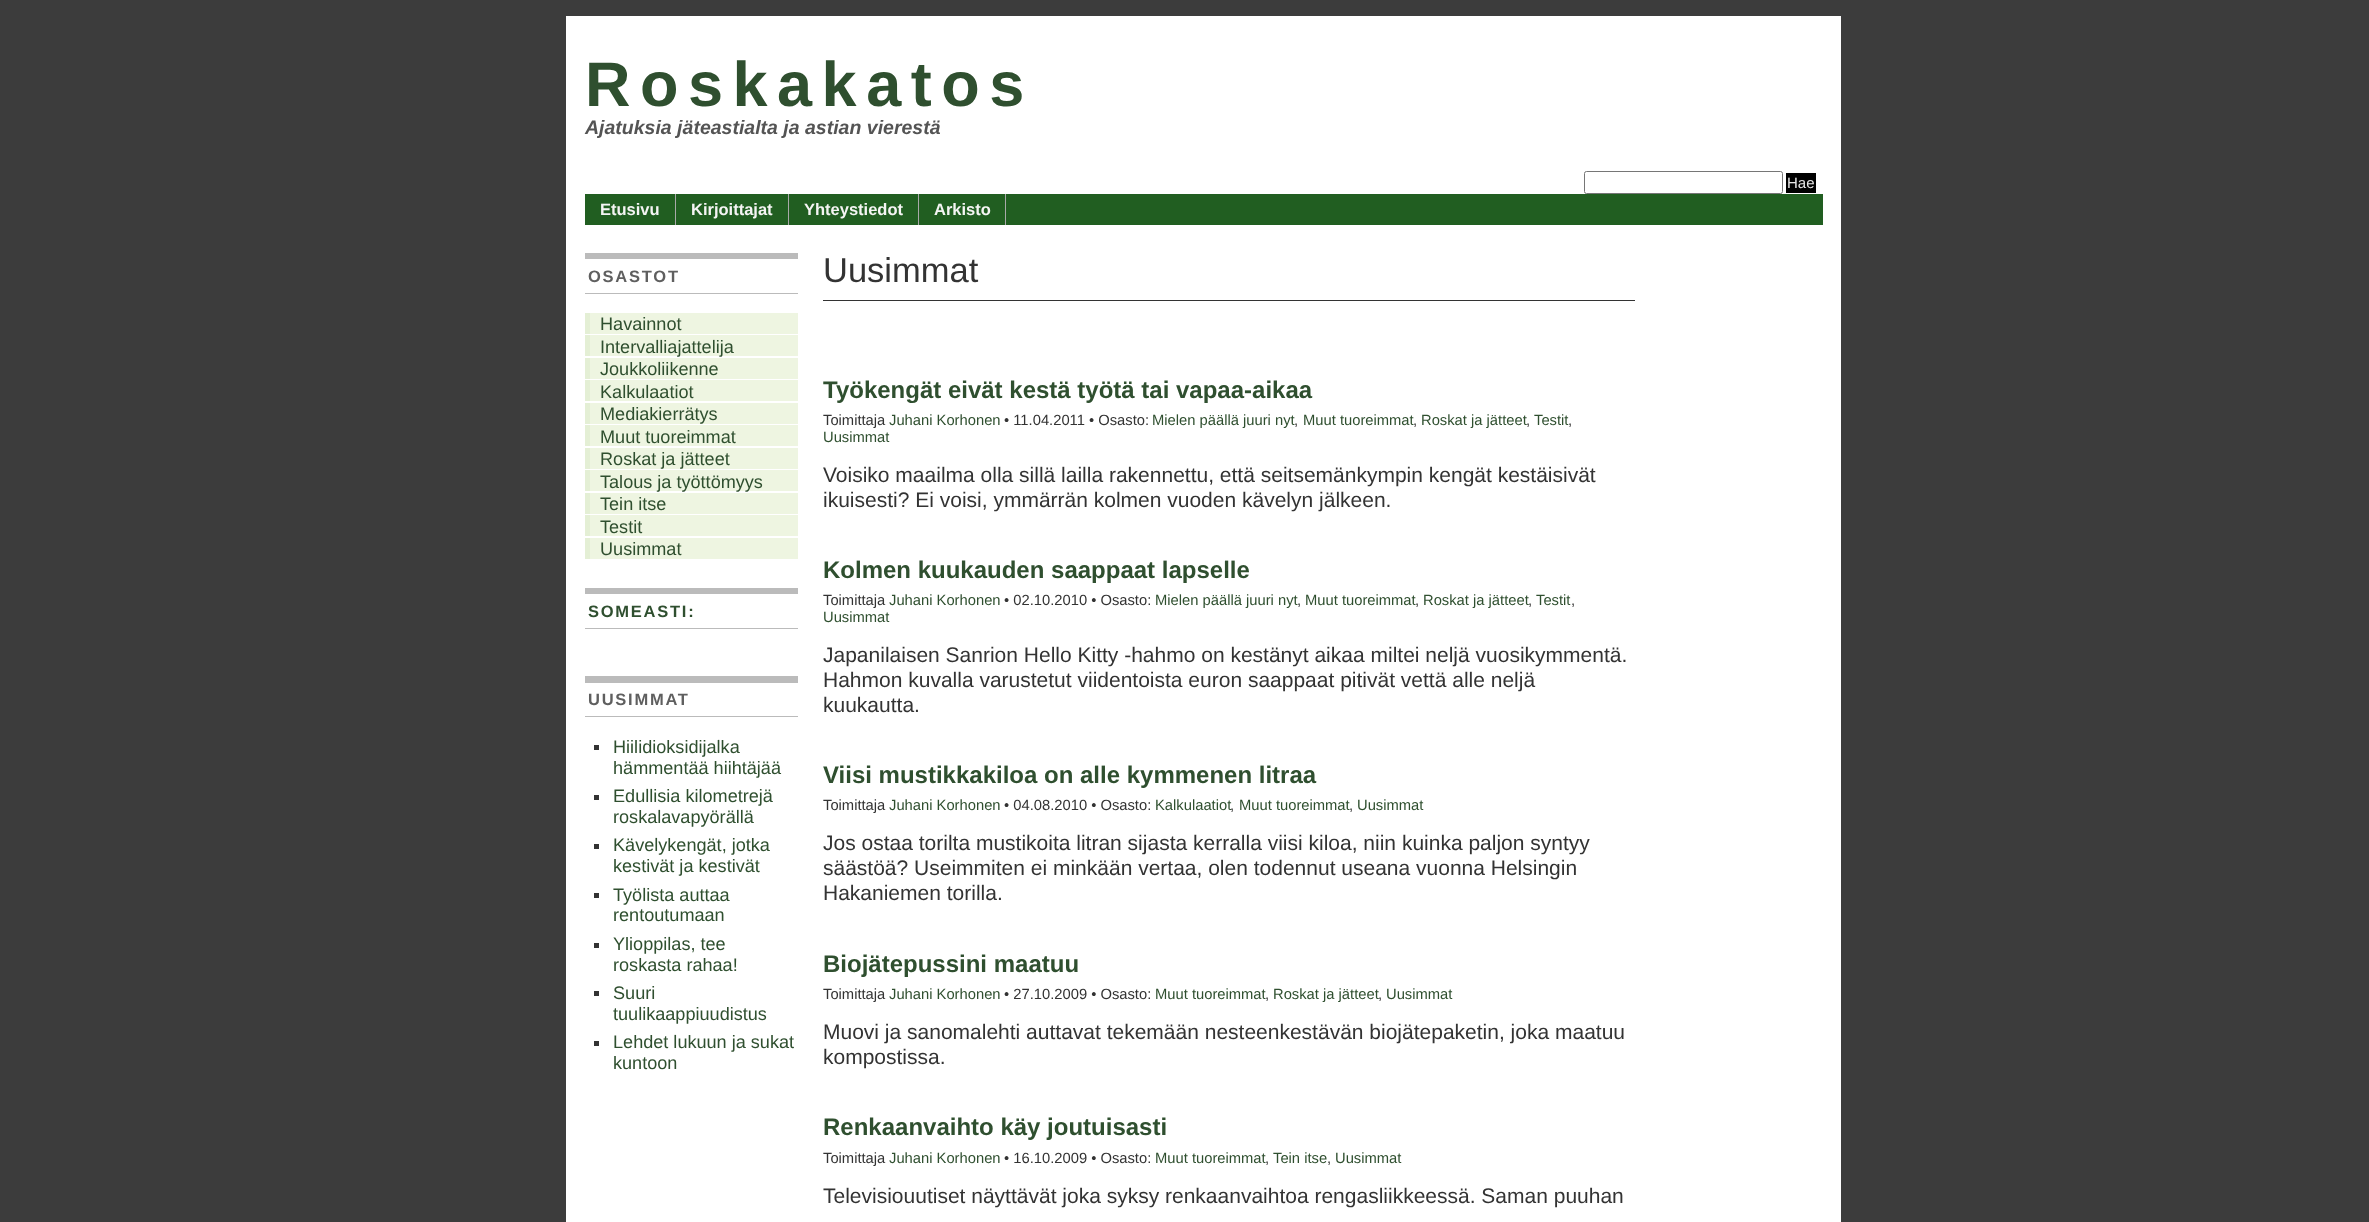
(async () => {
  const canvas = document.querySelector("canvas");
  canvas.width = 2369;
  canvas.height = 1222;
  const ctx = canvas.getContext("2d");
  ctx.miterLimit = 4;
  ctx.fontKerning = "normal";

  ctx.fillStyle = "#3c3c3c";
  ctx.fillRect(0, 0, 2369, 1222);
  ctx.fillStyle = "#ffffff";
  ctx.fillRect(566, 16, 1275, 1206);
  ctx.beginPath();
  ctx.roundRect(1584.5, 171.5, 198, 22, 2);
  ctx.strokeStyle = "#767676";
  ctx.stroke();
  for (const [x, y, w, h, color] of [
    [1786, 173, 30, 20, "#000000"],
    [585, 194, 1238, 31, "#215e21"],
    [675, 194, 1, 31, "#a9a9a9"],
    [788, 194, 1, 31, "#a9a9a9"],
    [918, 194, 1, 31, "#a9a9a9"],
    [1005, 194, 1, 31, "#a9a9a9"],
    [585, 253, 213, 6, "#bbbbbb"],
    [585, 293, 213, 1, "#bbbbbb"],
    [590, 313, 208, 21, "#eef5e1"],
    [585, 313, 5, 21, "#e4efd5"],
    [590, 335, 208, 21, "#eef5e1"],
    [585, 335, 5, 21, "#e4efd5"],
    [590, 358, 208, 21, "#eef5e1"],
    [585, 358, 5, 21, "#e4efd5"],
    [590, 380, 208, 21, "#eef5e1"],
    [585, 380, 5, 21, "#e4efd5"],
    [590, 403, 208, 21, "#eef5e1"],
    [585, 403, 5, 21, "#e4efd5"],
    [590, 425, 208, 21, "#eef5e1"],
    [585, 425, 5, 21, "#e4efd5"],
    [590, 448, 208, 21, "#eef5e1"],
    [585, 448, 5, 21, "#e4efd5"],
    [590, 470, 208, 21, "#eef5e1"],
    [585, 470, 5, 21, "#e4efd5"],
    [590, 493, 208, 21, "#eef5e1"],
    [585, 493, 5, 21, "#e4efd5"],
    [590, 515, 208, 21, "#eef5e1"],
    [585, 515, 5, 21, "#e4efd5"],
    [590, 538, 208, 21, "#eef5e1"],
    [585, 538, 5, 21, "#e4efd5"],
    [585, 588, 213, 6, "#bbbbbb"],
    [585, 628, 213, 1, "#bbbbbb"],
    [585, 676, 213, 7, "#bbbbbb"],
    [585, 716, 213, 1, "#bbbbbb"],
    [594, 745, 5, 5, "#333333"],
    [594, 795, 5, 5, "#333333"],
    [594, 844, 5, 5, "#333333"],
    [594, 893, 5, 5, "#333333"],
    [594, 943, 5, 5, "#333333"],
    [594, 991, 5, 5, "#333333"],
    [594, 1041, 5, 5, "#333333"],
    [823, 300, 812, 1, "#333333"],
  ]) {
    ctx.fillStyle = color;
    ctx.fillRect(x, y, w, h);
  }
  ctx.letterSpacing = "9.5px";
  ctx.font = "bold 63px Liberation Sans";
  ctx.fillStyle = "#2f4f2f";
  ctx.fillText("Roskakatos", 585, 106);
  ctx.letterSpacing = "0px";
  ctx.font = "italic bold 19.5px Liberation Sans";
  ctx.fillStyle = "#545454";
  ctx.fillText("Ajatuksia jäteastialta ja astian vierestä", 585, 134);
  ctx.font = "15px Liberation Sans";
  ctx.fillStyle = "#e7e7e7";
  ctx.fillText("Hae", 1787, 188);
  ctx.font = "bold 16.5px Liberation Sans";
  ctx.fillStyle = "#f5f5f4";
  for (const [text, x, y] of [
    ["Etusivu", 600, 215],
    ["Kirjoittajat", 691, 215],
    ["Yhteystiedot", 804, 215],
    ["Arkisto", 934, 215],
  ]) {
    ctx.fillText(text, x, y);
  }
  ctx.letterSpacing = "1.75px";
  ctx.fillStyle = "#5f5f5f";
  ctx.fillText("OSASTOT", 588, 282);
  ctx.letterSpacing = "0px";
  ctx.font = "18.1px Liberation Sans";
  ctx.fillStyle = "#2f4f2f";
  for (const [text, x, y] of [
    ["Havainnot", 600, 330],
    ["Intervalliajattelija", 600, 353],
    ["Joukkoliikenne", 600, 375],
    ["Kalkulaatiot", 600, 398],
    ["Mediakierrätys", 600, 420],
    ["Muut tuoreimmat", 600, 443],
    ["Roskat ja jätteet", 600, 465],
    ["Talous ja työttömyys", 600, 488],
    ["Tein itse", 600, 510],
    ["Testit", 600, 533],
    ["Uusimmat", 600, 555],
  ]) {
    ctx.fillText(text, x, y);
  }
  ctx.letterSpacing = "1.75px";
  ctx.font = "bold 16.5px Liberation Sans";
  ctx.fillText("SOMEASTI:", 588, 617);
  ctx.fillStyle = "#5f5f5f";
  ctx.fillText("UUSIMMAT", 588, 705);
  ctx.letterSpacing = "0px";
  ctx.font = "18.1px Liberation Sans";
  ctx.fillStyle = "#2f4f2f";
  for (const [text, x, y] of [
    ["Hiilidioksidijalka", 613, 753],
    ["hämmentää hiihtäjää", 613, 774],
    ["Edullisia kilometrejä", 613, 802],
    ["roskalavapyörällä", 613, 823],
    ["Kävelykengät, jotka", 613, 851],
    ["kestivät ja kestivät", 613, 872],
    ["Työlista auttaa", 613, 901],
    ["rentoutumaan", 613, 921],
    ["Ylioppilas, tee", 613, 950],
    ["roskasta rahaa!", 613, 971],
    ["Suuri", 613, 999],
    ["tuulikaappiuudistus", 613, 1020],
    ["Lehdet lukuun ja sukat", 613, 1048],
    ["kuntoon", 613, 1069],
  ]) {
    ctx.fillText(text, x, y);
  }
  ctx.font = "34.5px Liberation Sans";
  ctx.fillStyle = "#333333";
  ctx.fillText("Uusimmat", 823, 282);
  ctx.font = "bold 24px Liberation Sans";
  ctx.fillStyle = "#2f4f2f";
  ctx.fillText("Työkengät eivät kestä työtä tai vapaa-aikaa", 823, 398);
  ctx.font = "14.75px Liberation Sans";
  ctx.fillStyle = "#333333";
  ctx.fillText("Toimittaja", 823, 425);
  ctx.fillStyle = "#2f4f2f";
  ctx.fillText("Juhani Korhonen", 889, 425);
  ctx.fillStyle = "#333333";
  ctx.fillText("• 11.04.2011 • Osasto:", 1004, 425);
  ctx.fillStyle = "#2f4f2f";
  ctx.fillText("Mielen päällä juuri nyt", 1152, 425);
  ctx.fillStyle = "#333333";
  ctx.fillText(",", 1294, 425);
  ctx.fillStyle = "#2f4f2f";
  ctx.fillText("Muut tuoreimmat", 1303, 425);
  ctx.fillStyle = "#333333";
  ctx.fillText(",", 1413, 425);
  ctx.fillStyle = "#2f4f2f";
  ctx.fillText("Roskat ja jätteet", 1421, 425);
  ctx.fillStyle = "#333333";
  ctx.fillText(",", 1526, 425);
  ctx.fillStyle = "#2f4f2f";
  ctx.fillText("Testit", 1534, 425);
  ctx.fillStyle = "#333333";
  ctx.fillText(",", 1568, 425);
  ctx.fillStyle = "#2f4f2f";
  ctx.fillText("Uusimmat", 823, 442);
  ctx.font = "21px Liberation Sans";
  ctx.fillStyle = "#333333";
  ctx.fillText("Voisiko maailma olla sillä lailla rakennettu, että seitsemänkympin kengät kestäisivät", 823, 482);
  ctx.fillText("ikuisesti? Ei voisi, ymmärrän kolmen vuoden kävelyn jälkeen.", 823, 507);
  ctx.font = "bold 24px Liberation Sans";
  ctx.fillStyle = "#2f4f2f";
  ctx.fillText("Kolmen kuukauden saappaat lapselle", 823, 578);
  ctx.font = "14.75px Liberation Sans";
  ctx.fillStyle = "#333333";
  ctx.fillText("Toimittaja", 823, 605);
  ctx.fillStyle = "#2f4f2f";
  ctx.fillText("Juhani Korhonen", 889, 605);
  ctx.fillStyle = "#333333";
  ctx.fillText("• 02.10.2010 • Osasto:", 1004, 605);
  ctx.fillStyle = "#2f4f2f";
  ctx.fillText("Mielen päällä juuri nyt", 1155, 605);
  ctx.fillStyle = "#333333";
  ctx.fillText(",", 1297, 605);
  ctx.fillStyle = "#2f4f2f";
  ctx.fillText("Muut tuoreimmat", 1305, 605);
  ctx.fillStyle = "#333333";
  ctx.fillText(",", 1415, 605);
  ctx.fillStyle = "#2f4f2f";
  ctx.fillText("Roskat ja jätteet", 1423, 605);
  ctx.fillStyle = "#333333";
  ctx.fillText(",", 1528, 605);
  ctx.fillStyle = "#2f4f2f";
  ctx.fillText("Testit", 1536, 605);
  ctx.fillStyle = "#333333";
  ctx.fillText(",", 1571, 605);
  ctx.fillStyle = "#2f4f2f";
  ctx.fillText("Uusimmat", 823, 622);
  ctx.font = "21px Liberation Sans";
  ctx.fillStyle = "#333333";
  for (const [text, x, y] of [
    ["Japanilaisen Sanrion Hello Kitty -hahmo on kestänyt aikaa miltei neljä vuosikymmentä.", 823, 662],
    ["Hahmon kuvalla varustetut viidentoista euron saappaat pitivät vettä alle neljä", 823, 687],
    ["kuukautta.", 823, 712],
  ]) {
    ctx.fillText(text, x, y);
  }
  ctx.font = "bold 24px Liberation Sans";
  ctx.fillStyle = "#2f4f2f";
  ctx.fillText("Viisi mustikkakiloa on alle kymmenen litraa", 823, 783);
  ctx.font = "14.75px Liberation Sans";
  ctx.fillStyle = "#333333";
  ctx.fillText("Toimittaja", 823, 810);
  ctx.fillStyle = "#2f4f2f";
  ctx.fillText("Juhani Korhonen", 889, 810);
  ctx.fillStyle = "#333333";
  ctx.fillText("• 04.08.2010 • Osasto:", 1004, 810);
  ctx.fillStyle = "#2f4f2f";
  ctx.fillText("Kalkulaatiot", 1155, 810);
  ctx.fillStyle = "#333333";
  ctx.fillText(",", 1230, 810);
  ctx.fillStyle = "#2f4f2f";
  ctx.fillText("Muut tuoreimmat", 1239, 810);
  ctx.fillStyle = "#333333";
  ctx.fillText(",", 1349, 810);
  ctx.fillStyle = "#2f4f2f";
  ctx.fillText("Uusimmat", 1357, 810);
  ctx.font = "21px Liberation Sans";
  ctx.fillStyle = "#333333";
  for (const [text, x, y] of [
    ["Jos ostaa torilta mustikoita litran sijasta kerralla viisi kiloa, niin kuinka paljon syntyy", 823, 850],
    ["säästöä? Useimmiten ei minkään vertaa, olen todennut useana vuonna Helsingin", 823, 875],
    ["Hakaniemen torilla.", 823, 900],
  ]) {
    ctx.fillText(text, x, y);
  }
  ctx.font = "bold 24px Liberation Sans";
  ctx.fillStyle = "#2f4f2f";
  ctx.fillText("Biojätepussini maatuu", 823, 972);
  ctx.font = "14.75px Liberation Sans";
  ctx.fillStyle = "#333333";
  ctx.fillText("Toimittaja", 823, 999);
  ctx.fillStyle = "#2f4f2f";
  ctx.fillText("Juhani Korhonen", 889, 999);
  ctx.fillStyle = "#333333";
  ctx.fillText("• 27.10.2009 • Osasto:", 1004, 999);
  ctx.fillStyle = "#2f4f2f";
  ctx.fillText("Muut tuoreimmat", 1155, 999);
  ctx.fillStyle = "#333333";
  ctx.fillText(",", 1265, 999);
  ctx.fillStyle = "#2f4f2f";
  ctx.fillText("Roskat ja jätteet", 1273, 999);
  ctx.fillStyle = "#333333";
  ctx.fillText(",", 1378, 999);
  ctx.fillStyle = "#2f4f2f";
  ctx.fillText("Uusimmat", 1386, 999);
  ctx.font = "21px Liberation Sans";
  ctx.fillStyle = "#333333";
  ctx.fillText("Muovi ja sanomalehti auttavat tekemään nesteenkestävän biojätepaketin, joka maatuu", 823, 1039);
  ctx.fillText("kompostissa.", 823, 1064);
  ctx.font = "bold 24px Liberation Sans";
  ctx.fillStyle = "#2f4f2f";
  ctx.fillText("Renkaanvaihto käy joutuisasti", 823, 1135);
  ctx.font = "14.75px Liberation Sans";
  ctx.fillStyle = "#333333";
  ctx.fillText("Toimittaja", 823, 1163);
  ctx.fillStyle = "#2f4f2f";
  ctx.fillText("Juhani Korhonen", 889, 1163);
  ctx.fillStyle = "#333333";
  ctx.fillText("• 16.10.2009 • Osasto:", 1004, 1163);
  ctx.fillStyle = "#2f4f2f";
  ctx.fillText("Muut tuoreimmat", 1155, 1163);
  ctx.fillStyle = "#333333";
  ctx.fillText(",", 1265, 1163);
  ctx.fillStyle = "#2f4f2f";
  ctx.fillText("Tein itse", 1273, 1163);
  ctx.fillStyle = "#333333";
  ctx.fillText(",", 1327, 1163);
  ctx.fillStyle = "#2f4f2f";
  ctx.fillText("Uusimmat", 1335, 1163);
  ctx.font = "21px Liberation Sans";
  ctx.fillStyle = "#333333";
  ctx.fillText("Televisiouutiset näyttävät joka syksy renkaanvaihtoa rengasliikkeessä. Saman puuhan", 823, 1203);
})();
